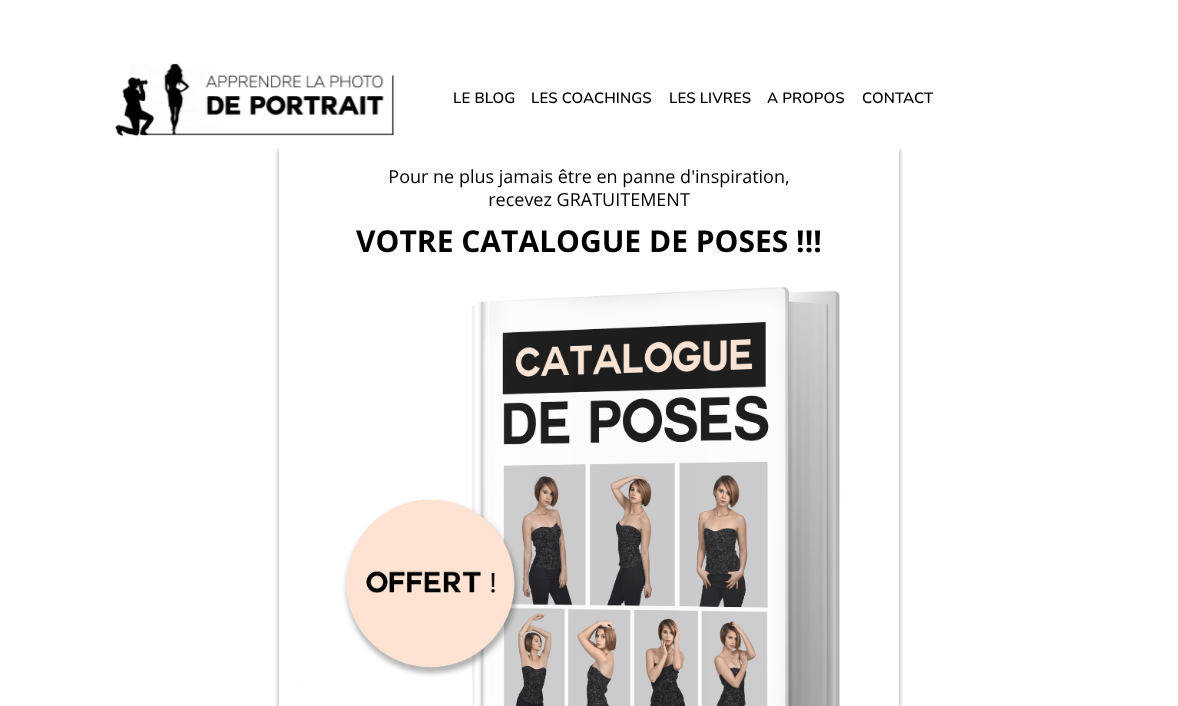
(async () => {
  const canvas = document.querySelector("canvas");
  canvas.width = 1178;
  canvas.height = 706;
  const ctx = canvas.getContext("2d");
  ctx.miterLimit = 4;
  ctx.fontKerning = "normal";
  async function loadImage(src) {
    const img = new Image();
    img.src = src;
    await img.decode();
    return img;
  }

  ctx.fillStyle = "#ffffff";
  ctx.fillRect(0, 0, 1178, 706);
  ctx.drawImage(await loadImage("img/1.png"), 114, 63, 281, 74);
  ctx.drawImage(await loadImage("img/2.png"), 275, 148, 628, 558);
  ctx.letterSpacing = "0.1px";
  ctx.font = "600 15px Nunito";
  ctx.fillStyle = "#000000";
  for (const [text, x, y] of [
    ["LE BLOG", 453, 103],
    ["LES COACHINGS", 531, 103],
    ["LES LIVRES", 669, 103],
    ["A PROPOS", 767, 103],
    ["CONTACT", 862, 103],
  ]) {
    ctx.fillText(text, x, y);
  }
})();
